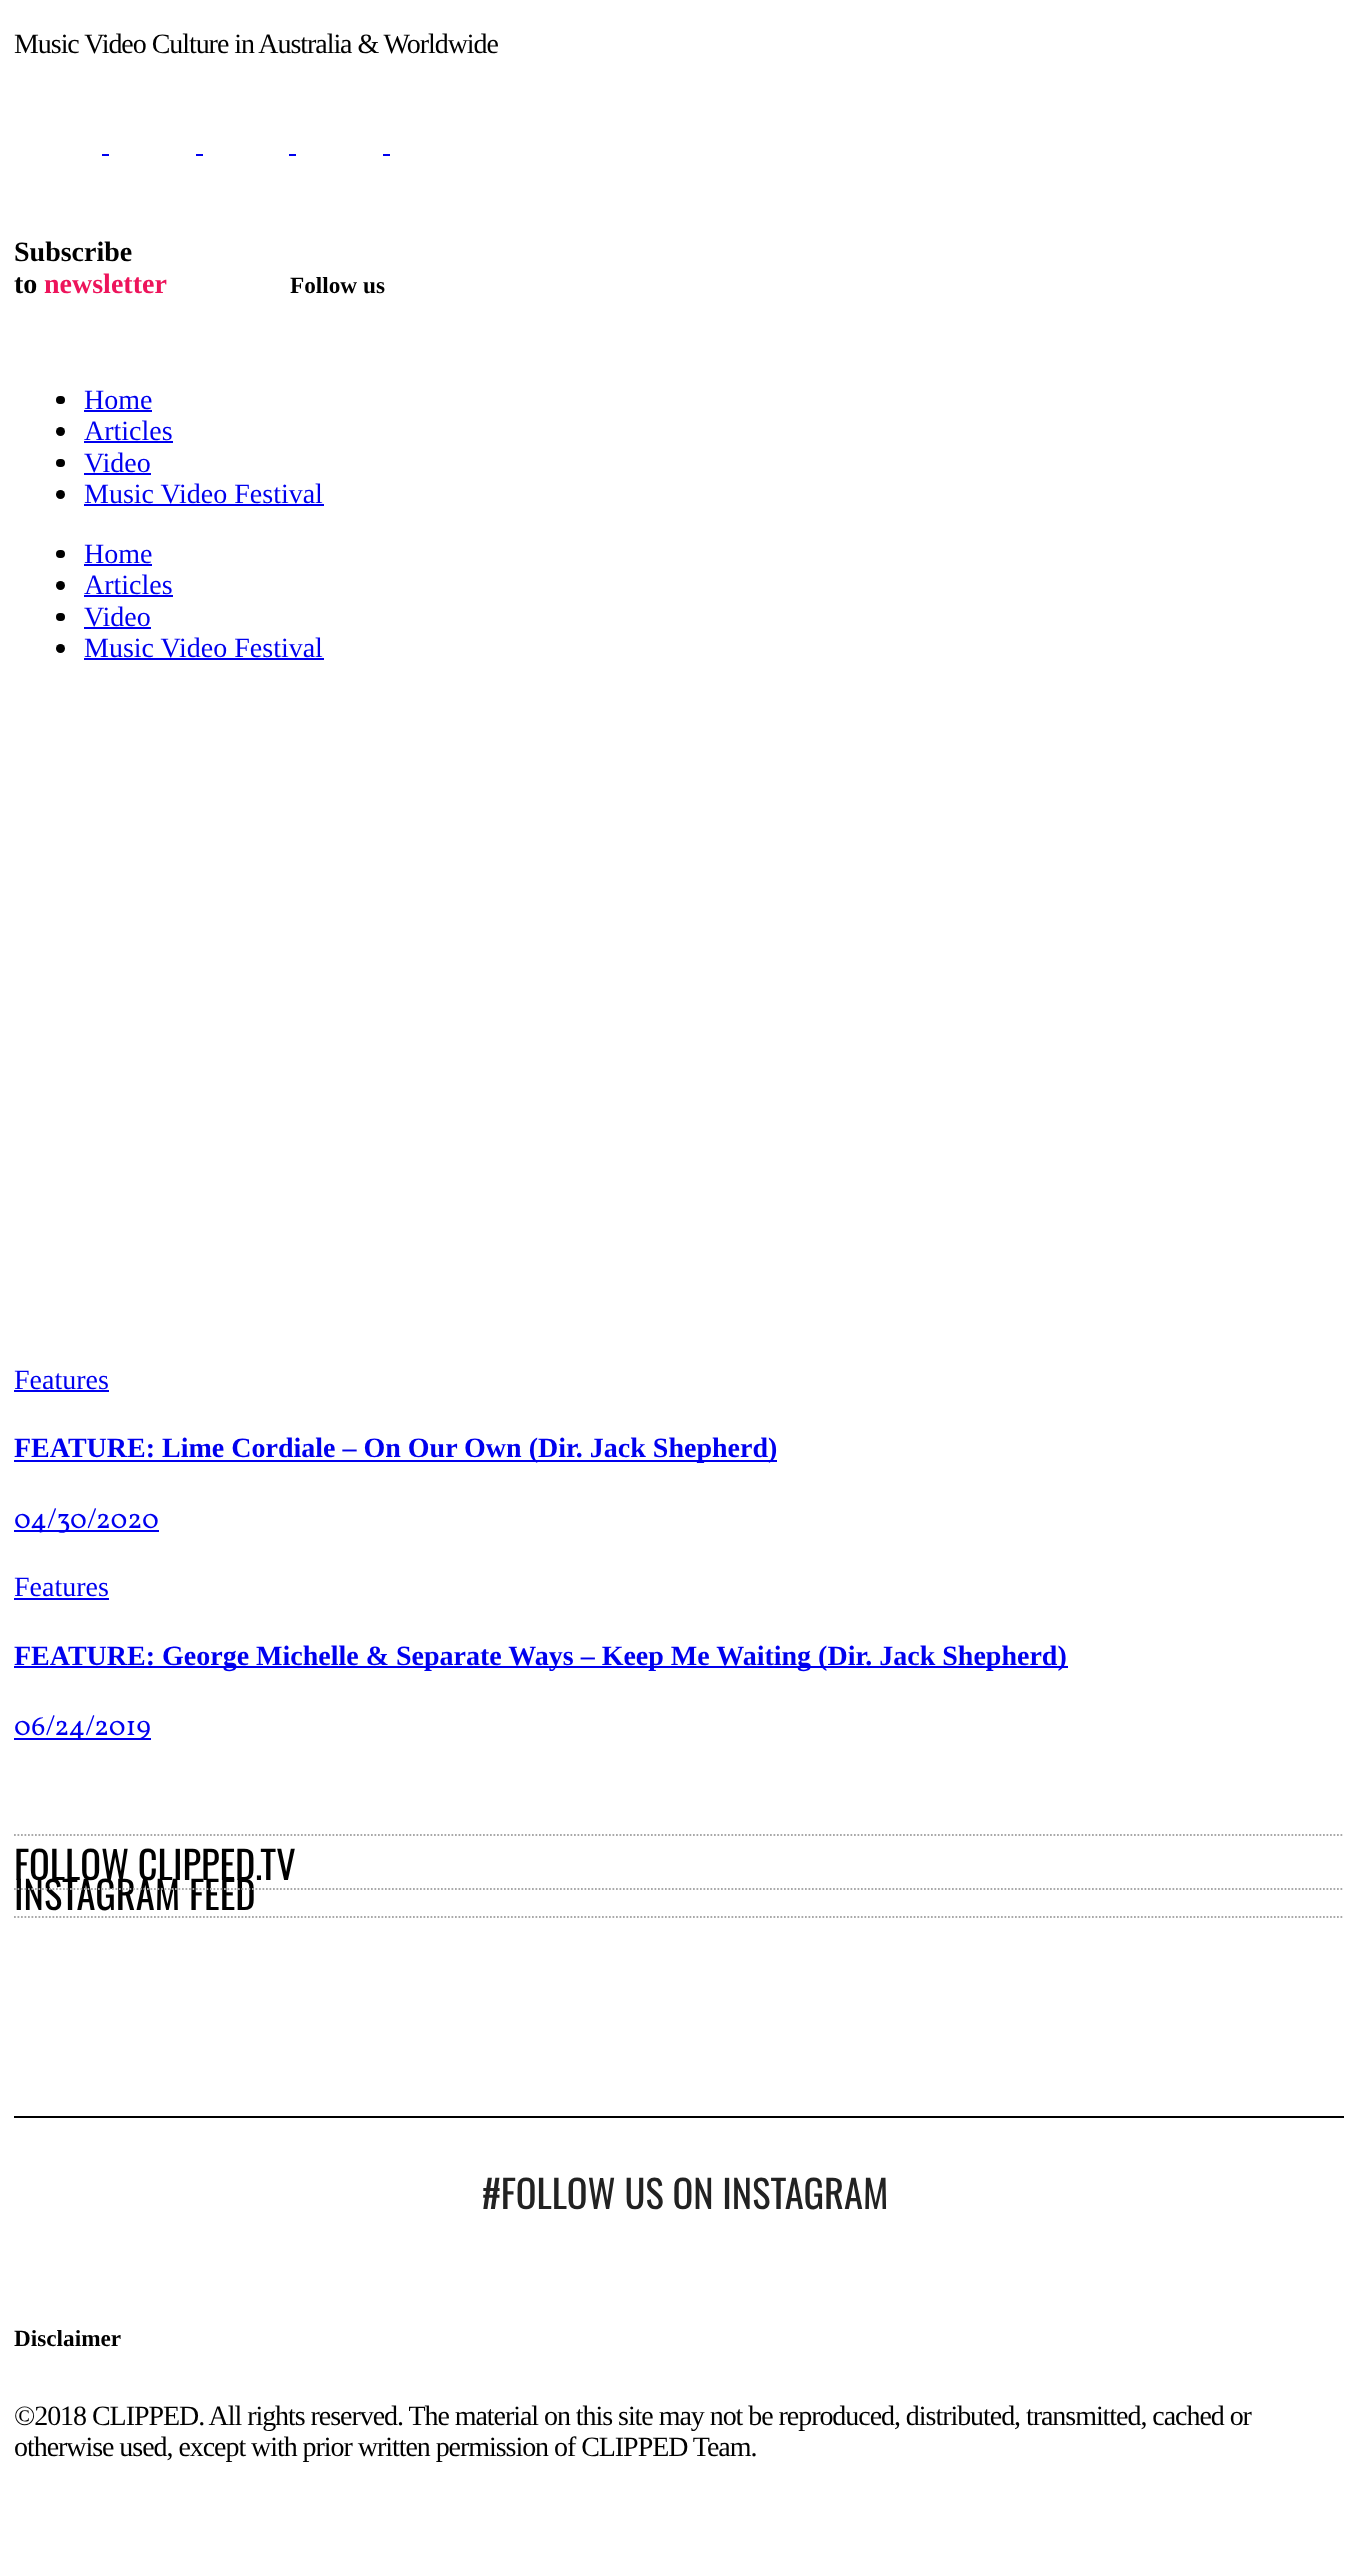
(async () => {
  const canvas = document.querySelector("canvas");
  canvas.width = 1357;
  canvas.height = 2562;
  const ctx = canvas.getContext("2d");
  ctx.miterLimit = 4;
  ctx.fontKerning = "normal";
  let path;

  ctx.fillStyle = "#ffffff";
  ctx.fillRect(0, 0, 1357, 2562);
  for (const [x, y, w, h, color] of [
    [102, 154, 7, 2, "#0000ee"],
    [196, 154, 7, 2, "#0000ee"],
    [289, 154, 7, 2, "#0000ee"],
    [383, 154, 7, 2, "#0000ee"],
  ]) {
    ctx.fillStyle = color;
    ctx.fillRect(x, y, w, h);
  }
  ctx.fillStyle = "#000000";
  ctx.beginPath();
  ctx.roundRect(56, 396, 9, 8, 4);
  ctx.fill();
  ctx.fillStyle = "#0000ee";
  ctx.fillRect(84, 410, 68, 2);
  ctx.fillStyle = "#000000";
  ctx.beginPath();
  ctx.arc(60.5, 431.5, 4.5, 0, Math.PI * 2);
  ctx.fill();
  ctx.fillStyle = "#0000ee";
  ctx.fillRect(84, 441, 89, 2);
  ctx.fillStyle = "#000000";
  ctx.beginPath();
  ctx.roundRect(56, 459, 9, 8, 4);
  ctx.fill();
  ctx.fillStyle = "#0000ee";
  ctx.fillRect(84, 473, 67, 2);
  ctx.fillStyle = "#000000";
  ctx.beginPath();
  ctx.arc(60.5, 494.5, 4.5, 0, Math.PI * 2);
  ctx.fill();
  ctx.fillStyle = "#0000ee";
  ctx.fillRect(84, 504, 240, 2);
  ctx.fillStyle = "#000000";
  ctx.beginPath();
  ctx.roundRect(56, 550, 9, 8, 4);
  ctx.fill();
  ctx.fillStyle = "#0000ee";
  ctx.fillRect(84, 564, 68, 2);
  ctx.fillStyle = "#000000";
  ctx.beginPath();
  ctx.arc(60.5, 585.5, 4.5, 0, Math.PI * 2);
  ctx.fill();
  ctx.fillStyle = "#0000ee";
  ctx.fillRect(84, 595, 89, 2);
  ctx.fillStyle = "#000000";
  ctx.beginPath();
  ctx.roundRect(56, 613, 9, 8, 4);
  ctx.fill();
  ctx.fillStyle = "#0000ee";
  ctx.fillRect(84, 627, 67, 2);
  ctx.fillStyle = "#000000";
  ctx.beginPath();
  ctx.arc(60.5, 648.5, 4.5, 0, Math.PI * 2);
  ctx.fill();
  for (const [x, y, w, h, color] of [
    [84, 658, 240, 2, "#0000ee"],
    [14, 1390, 95, 2, "#0000ee"],
    [14, 1460, 763, 2, "#0000ee"],
    [14, 1530, 145, 2, "#0000ee"],
    [14, 1598, 95, 2, "#0000ee"],
    [14, 1666, 1054, 2, "#0000ee"],
    [14, 1738, 137, 2, "#0000ee"],
  ]) {
    ctx.fillStyle = color;
    ctx.fillRect(x, y, w, h);
  }
  path = new Path2D("M14 1835H1344");
  ctx.strokeStyle = "#a9a9a9";
  ctx.lineWidth = 1.8;
  ctx.setLineDash([1.75, 1.75]);
  ctx.stroke(path);
  path = new Path2D("M14 1917H1344");
  ctx.stroke(path);
  ctx.fillStyle = "#000000";
  ctx.fillRect(14, 2116, 1330, 2);
  ctx.letterSpacing = "-1.05px";
  ctx.font = "28px Liberation Serif";
  ctx.fillText("Music Video Culture in Australia & Worldwide", 14, 53);
  ctx.letterSpacing = "0px";
  ctx.font = "bold 28px Liberation Serif";
  ctx.fillText("Subscribe", 14, 261);
  ctx.fillText("to", 14, 293);
  ctx.fillStyle = "#ed145b";
  ctx.fillText("newsletter", 44, 293);
  ctx.font = "bold 23.25px Liberation Serif";
  ctx.fillStyle = "#000000";
  ctx.fillText("Follow us", 290, 293);
  ctx.font = "28px Liberation Serif";
  ctx.fillStyle = "#0000ee";
  for (const [text, x, y] of [
    ["Home", 84, 409],
    ["Articles", 84, 440],
    ["Video", 84, 472],
    ["Music Video Festival", 84, 503],
    ["Home", 84, 563],
    ["Articles", 84, 594],
    ["Video", 84, 626],
    ["Music Video Festival", 84, 657],
    ["Features", 14, 1389],
  ]) {
    ctx.fillText(text, x, y);
  }
  ctx.font = "bold 28px Liberation Serif";
  ctx.fillText("FEATURE: Lime Cordiale – On Our Own (Dir. Jack Shepherd)", 14, 1457);
  ctx.font = "28px Vollkorn";
  ctx.fillText("04/30/2020", 14, 1528);
  ctx.font = "28px Liberation Serif";
  ctx.fillText("Features", 14, 1596);
  ctx.font = "bold 28px Liberation Serif";
  ctx.fillText("FEATURE: George Michelle & Separate Ways – Keep Me Waiting (Dir. Jack Shepherd)", 14, 1665);
  ctx.font = "28px Vollkorn";
  ctx.fillText("06/24/2019", 14, 1735);
  ctx.font = "38.5px Oswald";
  ctx.fillStyle = "#000000";
  ctx.fillText("FOLLOW CLIPPED.TV", 14, 1880);
  ctx.fillText("INSTAGRAM FEED", 14, 1910);
  path = new Path2D("M14 1889H1344");
  ctx.stroke(path);
  ctx.fillStyle = "#222222";
  ctx.fillText("#FOLLOW US ON INSTAGRAM", 482, 2209);
  ctx.font = "bold 23.25px Liberation Serif";
  ctx.fillStyle = "#000000";
  ctx.fillText("Disclaimer", 14, 2346);
  ctx.letterSpacing = "-1.05px";
  ctx.font = "28px Liberation Serif";
  ctx.fillText("©2018 CLIPPED. All rights reserved. The material on this site may not be reproduced, distributed, transmitted, cached or", 14, 2425);
  ctx.fillText("otherwise used, except with prior written permission of CLIPPED Team.", 14, 2456);
})();
